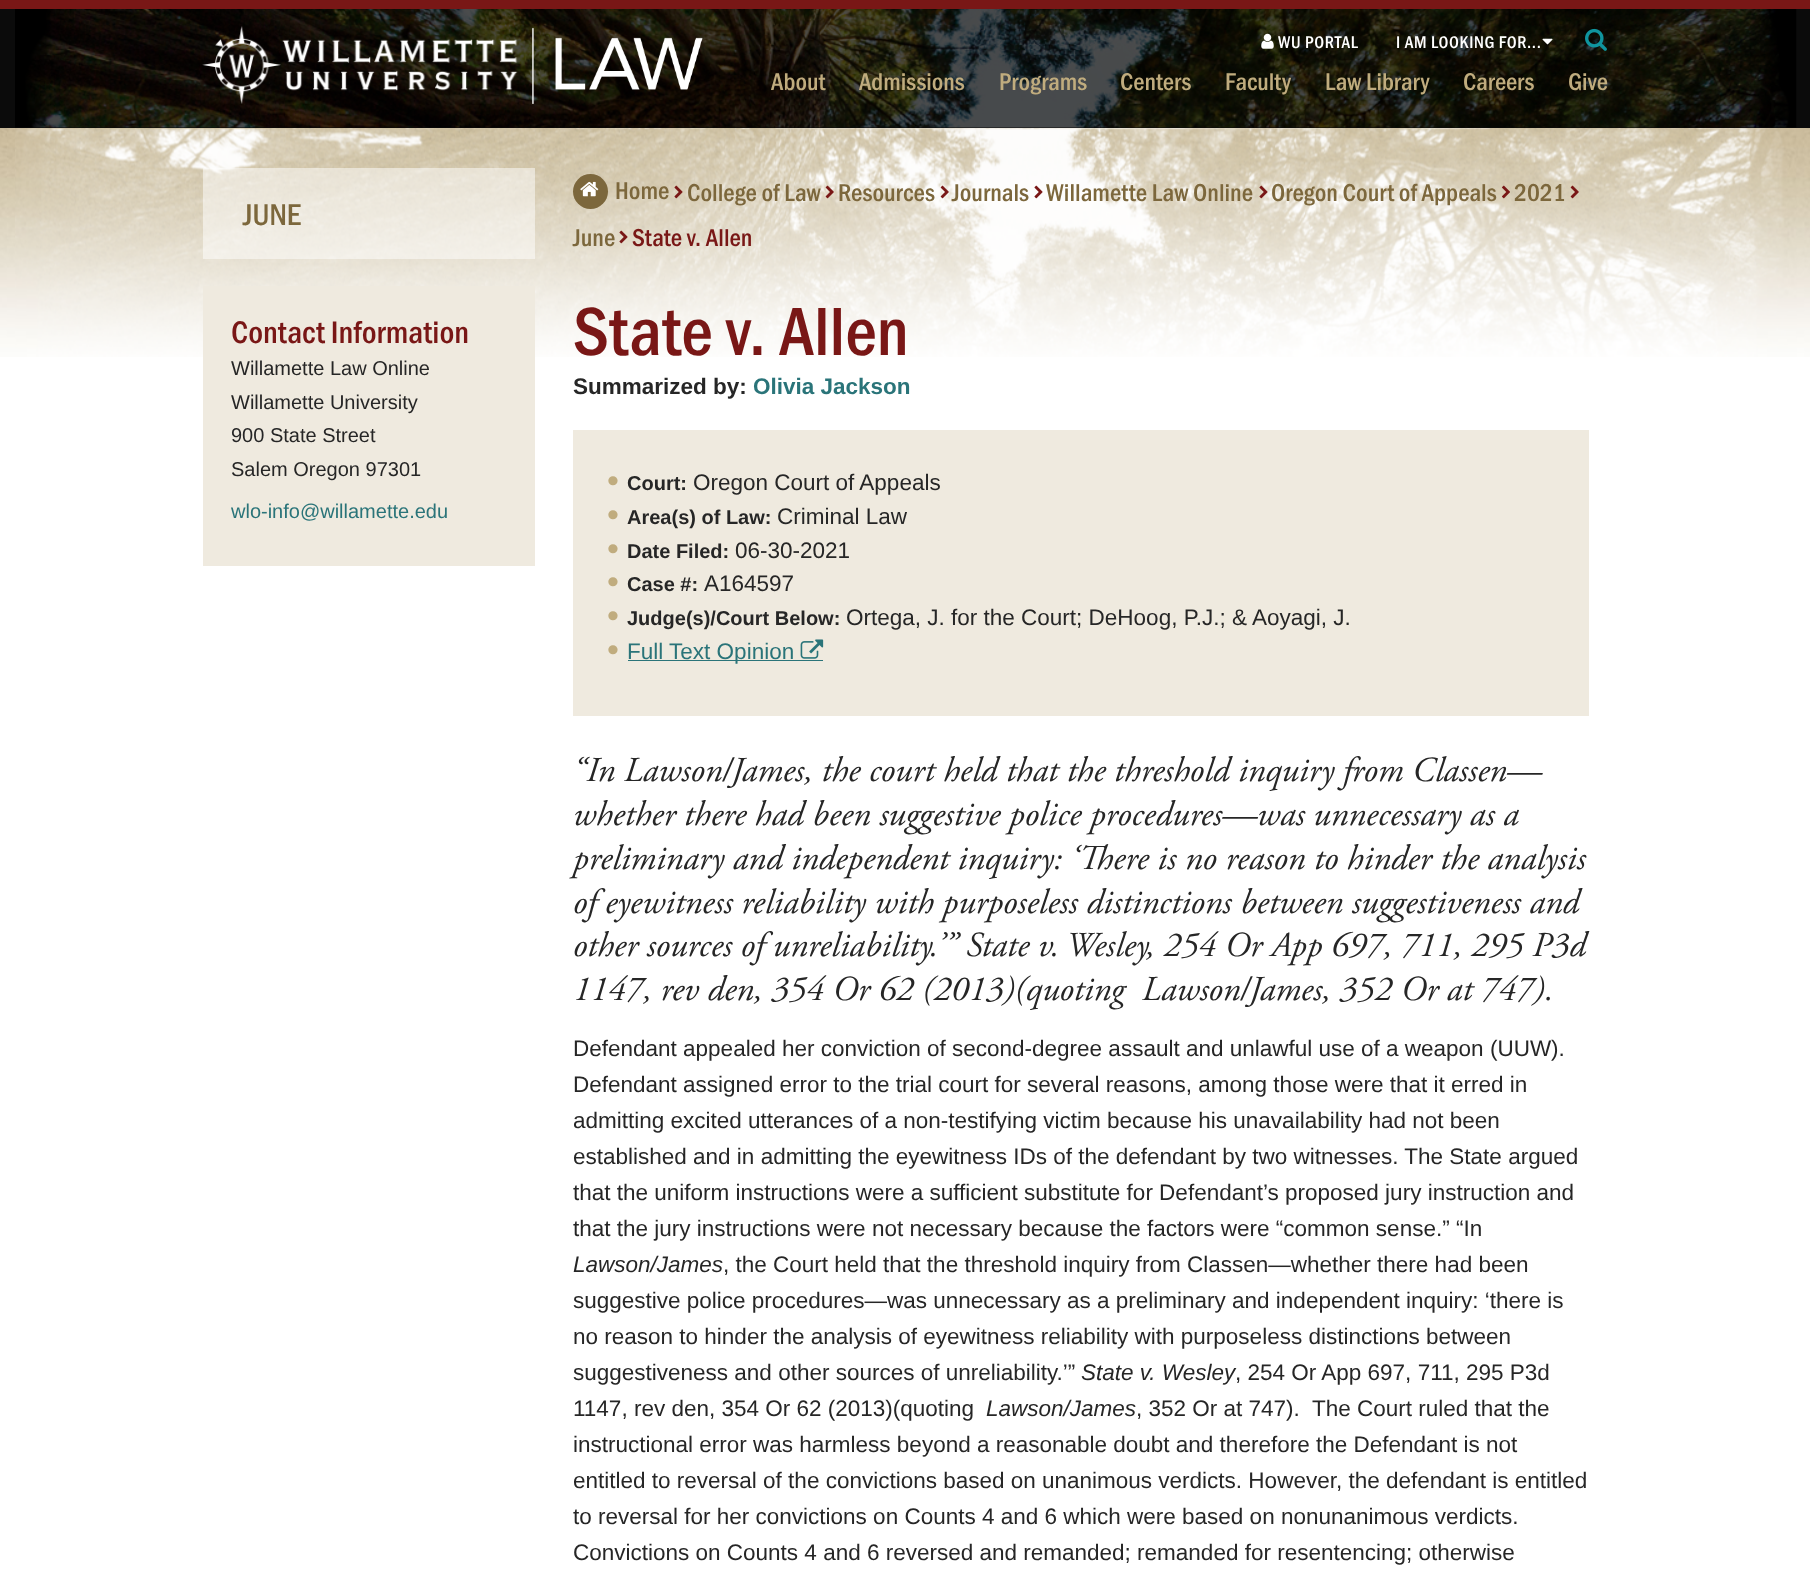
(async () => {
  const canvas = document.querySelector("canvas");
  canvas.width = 1810;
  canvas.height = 1569;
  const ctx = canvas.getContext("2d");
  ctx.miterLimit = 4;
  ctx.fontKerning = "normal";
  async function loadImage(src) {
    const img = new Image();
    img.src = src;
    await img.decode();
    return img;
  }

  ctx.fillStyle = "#ffffff";
  ctx.fillRect(0, 0, 1810, 1569);
  ctx.fillStyle = "#0b0b0b";
  ctx.fillRect(0, 9, 1810, 119);
  ctx.drawImage(await loadImage("img/1.png"), 15, 9, 1782, 119);
  ctx.fillStyle = "#791716";
  ctx.fillRect(0, 0, 1810, 9);
  ctx.drawImage(await loadImage("img/2.png"), 202, 26, 316, 78);
  ctx.drawImage(await loadImage("img/3.png"), 532, 27, 171, 77);
  ctx.drawImage(await loadImage("img/4.png"), 1261, 33, 13, 16);
  ctx.drawImage(await loadImage("img/5.png"), 1542, 38, 11, 7);
  ctx.drawImage(await loadImage("img/6.png"), 1585, 28, 22, 23);
  ctx.drawImage(await loadImage("img/7.png"), 0, 128, 1810, 229);
  ctx.fillStyle = "rgba(255, 255, 255, 0.5)";
  ctx.fillRect(203, 168, 332, 91);
  ctx.fillStyle = "#efeadf";
  ctx.fillRect(203, 286, 332, 280);
  ctx.fillStyle = "#7c673c";
  ctx.beginPath();
  ctx.arc(590.5, 191.5, 17.5, 0, Math.PI * 2);
  ctx.fill();
  ctx.drawImage(await loadImage("img/8.png"), 580, 181, 19, 16);
  ctx.drawImage(await loadImage("img/9.png"), 674, 185, 9, 14);
  ctx.drawImage(await loadImage("img/10.png"), 825, 185, 9, 14);
  ctx.drawImage(await loadImage("img/11.png"), 940, 185, 9, 14);
  ctx.drawImage(await loadImage("img/12.png"), 1034, 185, 9, 14);
  ctx.drawImage(await loadImage("img/13.png"), 1259, 185, 9, 14);
  ctx.drawImage(await loadImage("img/14.png"), 1502, 185, 8, 14);
  ctx.drawImage(await loadImage("img/15.png"), 1570, 185, 9, 14);
  ctx.drawImage(await loadImage("img/16.png"), 619, 230, 9, 14);
  ctx.fillStyle = "#efeadf";
  ctx.fillRect(573, 430, 1016, 286);
  ctx.fillStyle = "#2a7479";
  ctx.fillRect(628, 660, 195, 1);
  ctx.drawImage(await loadImage("img/17.png"), 800, 639, 24, 20);
  ctx.letterSpacing = "0.6px";
  ctx.font = "500 17.5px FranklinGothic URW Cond";
  ctx.fillStyle = "#ffffff";
  ctx.fillText("WU PORTAL", 1278, 48);
  ctx.fillText("I AM LOOKING FOR...", 1396, 48);
  ctx.letterSpacing = "0px";
  ctx.font = "500 25px FranklinGothic URW Cond";
  ctx.fillStyle = "#c0ac7e";
  for (const [text, x, y] of [
    ["About", 771, 90],
    ["Admissions", 859, 90],
    ["Programs", 999, 90],
    ["Centers", 1120, 90],
    ["Faculty", 1225, 90],
    ["Law Library", 1325, 90],
    ["Careers", 1463, 90],
    ["Give", 1568, 90],
  ]) {
    ctx.fillText(text, x, y);
  }
  ctx.font = "500 31px FranklinGothic URW Cond";
  ctx.fillStyle = "#7c673c";
  ctx.fillText("JUNE", 243, 225);
  ctx.font = "500 32.25px FranklinGothic URW Cond";
  ctx.fillStyle = "#791716";
  ctx.fillText("Contact Information", 231, 343);
  ctx.font = "20px Liberation Sans";
  ctx.fillStyle = "#262626";
  for (const [text, x, y] of [
    ["Willamette Law Online", 231, 375],
    ["Willamette University", 231, 409],
    ["900 State Street", 231, 442],
    ["Salem Oregon 97301", 231, 476],
  ]) {
    ctx.fillText(text, x, y);
  }
  ctx.fillStyle = "#2a7479";
  ctx.fillText("wlo-info@willamette.edu", 231, 518);
  ctx.font = "500 25.25px FranklinGothic URW Cond";
  ctx.fillStyle = "#7c673c";
  for (const [text, x, y] of [
    ["Home", 615, 199],
    ["College of Law", 687, 201],
    ["Resources", 838, 201],
    ["Journals", 952, 201],
    ["Willamette Law Online", 1046, 201],
    ["Oregon Court of Appeals", 1271, 201],
    ["2021", 1514, 201],
    ["June", 573, 246],
  ]) {
    ctx.fillText(text, x, y);
  }
  ctx.fillStyle = "#791716";
  ctx.fillText("State v. Allen", 632, 246);
  ctx.font = "500 70.5px FranklinGothic URW Cond";
  ctx.fillText("State v. Allen", 573, 355);
  ctx.font = "bold 22.5px Liberation Sans";
  ctx.fillStyle = "#262626";
  ctx.fillText("Summarized by:", 573, 394);
  ctx.fillStyle = "#2a7479";
  ctx.fillText("Olivia Jackson", 753, 394);
  ctx.font = "34px Liberation Sans";
  ctx.fillStyle = "#c0ac7e";
  ctx.fillText("•", 607, 492);
  ctx.font = "bold 20px Liberation Sans";
  ctx.fillStyle = "#262626";
  ctx.fillText("Court:", 627, 490);
  ctx.font = "22.5px Liberation Sans";
  ctx.fillText("Oregon Court of Appeals", 693, 490);
  ctx.font = "34px Liberation Sans";
  ctx.fillStyle = "#c0ac7e";
  ctx.fillText("•", 607, 526);
  ctx.font = "bold 20px Liberation Sans";
  ctx.fillStyle = "#262626";
  ctx.fillText("Area(s) of Law:", 627, 524);
  ctx.font = "22.5px Liberation Sans";
  ctx.fillText("Criminal Law", 777, 524);
  ctx.font = "34px Liberation Sans";
  ctx.fillStyle = "#c0ac7e";
  ctx.fillText("•", 607, 560);
  ctx.font = "bold 20px Liberation Sans";
  ctx.fillStyle = "#262626";
  ctx.fillText("Date Filed:", 627, 558);
  ctx.font = "22.5px Liberation Sans";
  ctx.fillText("06-30-2021", 735, 558);
  ctx.font = "34px Liberation Sans";
  ctx.fillStyle = "#c0ac7e";
  ctx.fillText("•", 607, 593);
  ctx.font = "bold 20px Liberation Sans";
  ctx.fillStyle = "#262626";
  ctx.fillText("Case #:", 627, 591);
  ctx.font = "22.5px Liberation Sans";
  ctx.fillText("A164597", 704, 591);
  ctx.font = "34px Liberation Sans";
  ctx.fillStyle = "#c0ac7e";
  ctx.fillText("•", 607, 627);
  ctx.font = "bold 20px Liberation Sans";
  ctx.fillStyle = "#262626";
  ctx.fillText("Judge(s)/Court Below:", 627, 625);
  ctx.font = "22.5px Liberation Sans";
  ctx.fillText("Ortega, J. for the Court; DeHoog, P.J.; & Aoyagi, J.", 846, 625);
  ctx.font = "34px Liberation Sans";
  ctx.fillStyle = "#c0ac7e";
  ctx.fillText("•", 607, 661);
  ctx.font = "22.5px Liberation Sans";
  ctx.fillStyle = "#2a7479";
  ctx.fillText("Full Text Opinion", 627, 659);
  ctx.font = "italic 35px Adobe Garamond";
  ctx.fillStyle = "#262626";
  for (const [text, x, y] of [
    ["“In Lawson/James, the court held that the threshold inquiry from Classen—", 573, 781],
    ["whether there had been suggestive police procedures—was unnecessary as a", 573, 825],
    ["preliminary and independent inquiry: ‘There is no reason to hinder the analysis", 573, 869],
    ["of eyewitness reliability with purposeless distinctions between suggestiveness and", 573, 913],
    ["other sources of unreliability.’” State v. Wesley, 254 Or App 697, 711, 295 P3d", 573, 956],
    ["1147, rev den, 354 Or 62 (2013)(quoting  Lawson/James, 352 Or at 747).", 573, 1000],
  ]) {
    ctx.fillText(text, x, y);
  }
  ctx.font = "22.5px Liberation Sans";
  for (const [text, x, y] of [
    ["Defendant appealed her conviction of second-degree assault and unlawful use of a weapon (UUW).", 573, 1056],
    ["Defendant assigned error to the trial court for several reasons, among those were that it erred in", 573, 1092],
    ["admitting excited utterances of a non-testifying victim because his unavailability had not been", 573, 1128],
    ["established and in admitting the eyewitness IDs of the defendant by two witnesses. The State argued", 573, 1164],
    ["that the uniform instructions were a sufficient substitute for Defendant’s proposed jury instruction and", 573, 1200],
    ["that the jury instructions were not necessary because the factors were “common sense.” “In", 573, 1236],
  ]) {
    ctx.fillText(text, x, y);
  }
  ctx.font = "italic 22.5px Liberation Sans";
  ctx.fillText("Lawson/James", 573, 1272);
  ctx.font = "22.5px Liberation Sans";
  for (const [text, x, y] of [
    [", the Court held that the threshold inquiry from Classen—whether there had been", 723, 1272],
    ["suggestive police procedures—was unnecessary as a preliminary and independent inquiry: ‘there is", 573, 1308],
    ["no reason to hinder the analysis of eyewitness reliability with purposeless distinctions between", 573, 1344],
    ["suggestiveness and other sources of unreliability.’”", 573, 1380],
  ]) {
    ctx.fillText(text, x, y);
  }
  ctx.font = "italic 22.5px Liberation Sans";
  ctx.fillText("State v. Wesley", 1081, 1380);
  ctx.font = "22.5px Liberation Sans";
  ctx.fillText(", 254 Or App 697, 711, 295 P3d", 1235, 1380);
  ctx.fillText("1147, rev den, 354 Or 62 (2013)(quoting", 573, 1416);
  ctx.font = "italic 22.5px Liberation Sans";
  ctx.fillText("Lawson/James", 986, 1416);
  ctx.font = "22.5px Liberation Sans";
  for (const [text, x, y] of [
    [", 352 Or at 747).  The Court ruled that the", 1136, 1416],
    ["instructional error was harmless beyond a reasonable doubt and therefore the Defendant is not", 573, 1452],
    ["entitled to reversal of the convictions based on unanimous verdicts. However, the defendant is entitled", 573, 1488],
    ["to reversal for her convictions on Counts 4 and 6 which were based on nonunanimous verdicts.", 573, 1524],
    ["Convictions on Counts 4 and 6 reversed and remanded; remanded for resentencing; otherwise", 573, 1560],
  ]) {
    ctx.fillText(text, x, y);
  }
})();
